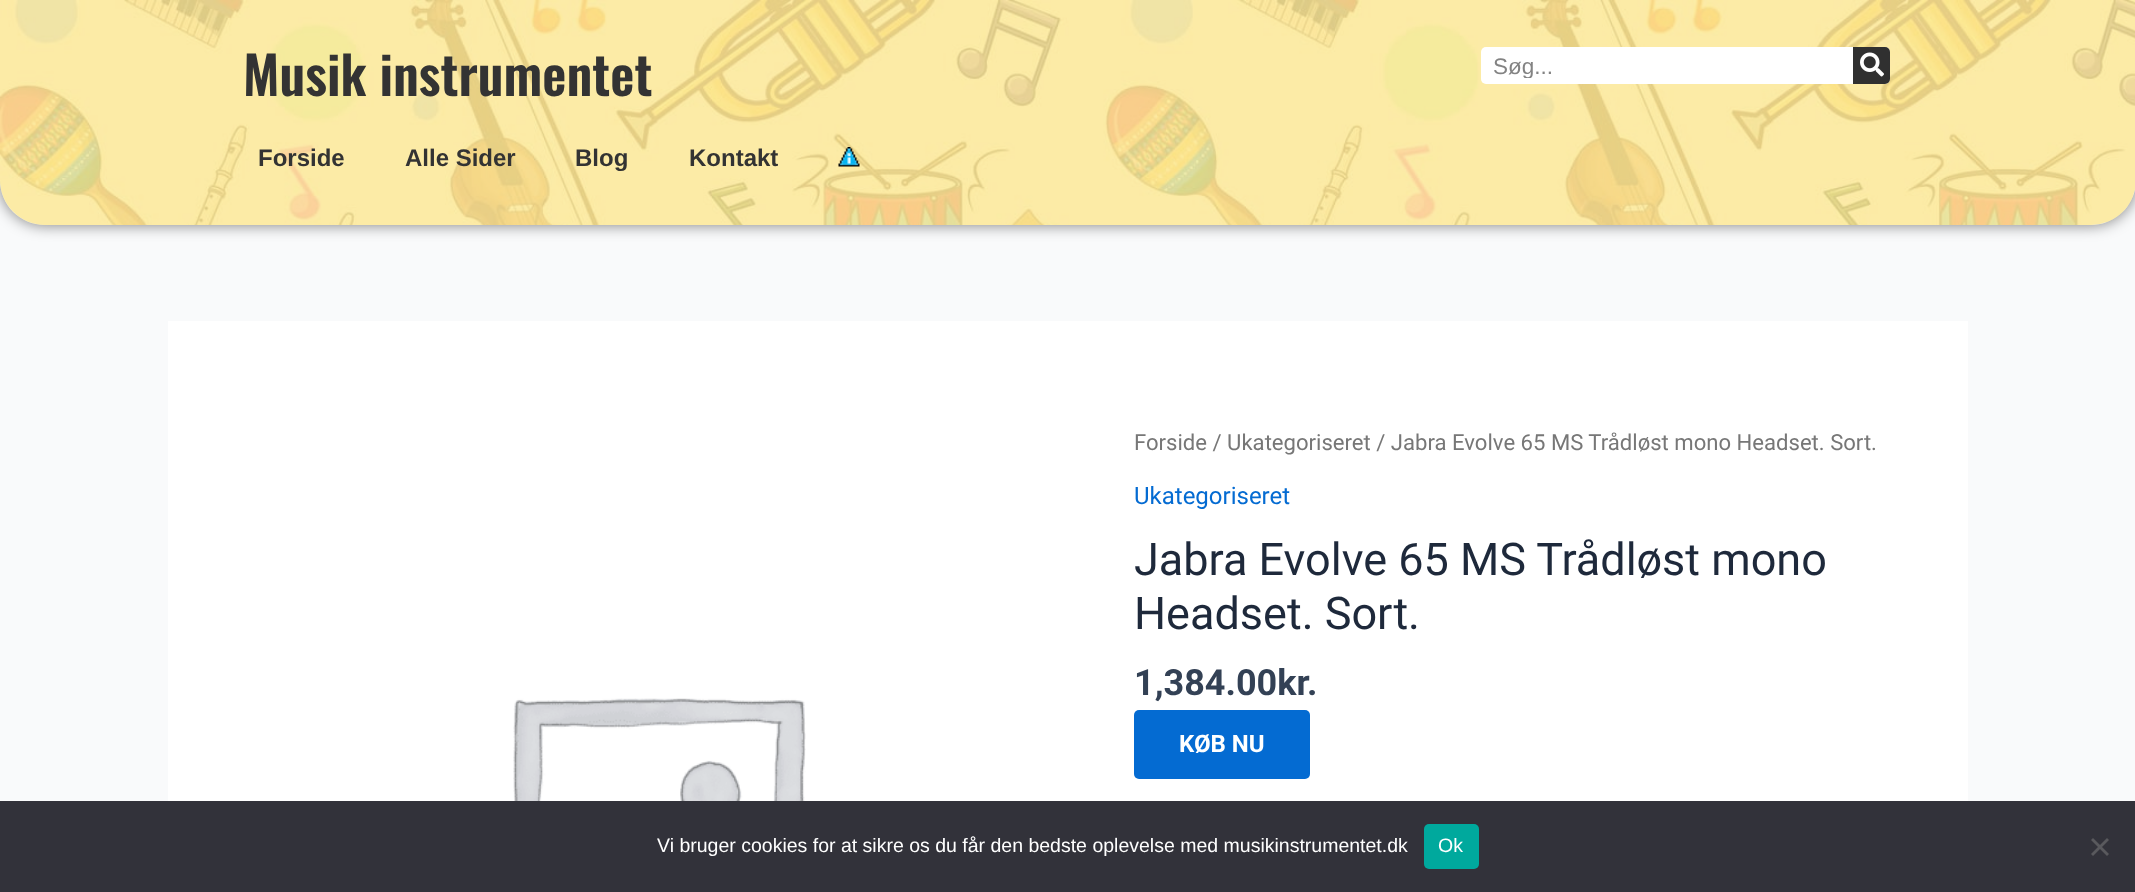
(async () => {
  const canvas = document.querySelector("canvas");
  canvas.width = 2135;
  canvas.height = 892;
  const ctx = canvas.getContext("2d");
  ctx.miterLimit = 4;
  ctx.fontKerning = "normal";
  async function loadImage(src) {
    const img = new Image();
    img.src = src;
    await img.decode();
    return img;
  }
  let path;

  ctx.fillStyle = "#f9fafb";
  ctx.fillRect(0, 0, 2135, 892);
  ctx.save();
  path = new Path2D("M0 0H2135V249H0ZM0 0H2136V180C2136 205 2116 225 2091 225H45C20 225 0 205 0 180Z");
  ctx.clip(path, "evenodd");
  ctx.fillStyle = "rgba(0, 0, 0, 0.5)";
  ctx.filter = "blur(7.5px)";
  ctx.beginPath();
  ctx.roundRect(0, 0, 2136, 225, 45);
  ctx.fill();
  ctx.filter = "none";
  ctx.restore();
  ctx.drawImage(await loadImage("img/1.png"), 0, 0, 2135, 225);
  ctx.fillStyle = "#ffffff";
  ctx.beginPath();
  ctx.roundRect(1481, 47, 409, 37, 5);
  ctx.fill();
  ctx.fillStyle = "#303030";
  ctx.beginPath();
  ctx.roundRect(1853, 47, 37, 37, [0, 5, 5, 0]);
  ctx.fill();
  ctx.drawImage(await loadImage("img/2.png"), 1860, 52, 24, 25);
  ctx.drawImage(await loadImage("img/3.png"), 838, 147, 22, 20);
  ctx.fillStyle = "#ffffff";
  ctx.fillRect(168, 321, 1800, 480);
  ctx.drawImage(await loadImage("img/4.png"), 513, 698, 293, 103);
  ctx.fillStyle = "#046bd2";
  ctx.beginPath();
  ctx.roundRect(1134, 710, 176, 69, 5);
  ctx.fill();
  ctx.fillStyle = "#32323a";
  ctx.fillRect(0, 801, 2135, 91);
  ctx.fillStyle = "#00a99d";
  ctx.beginPath();
  ctx.roundRect(1424, 824, 55, 45, 5);
  ctx.fill();
  ctx.fillStyle = "#59595d";
  path = new Path2D("M2107 838L2109 840L2093 856L2091 854Z");
  ctx.fill(path);
  path = new Path2D("M2091 840L2093 838L2109 854L2107 856Z");
  ctx.fill(path);
  ctx.font = "600 52.5px Oswald";
  ctx.fillStyle = "#333333";
  ctx.fillText("Musik instrumentet", 243, 96);
  ctx.save();
  ctx.beginPath();
  ctx.rect(1493, 53, 342, 25);
  ctx.clip();
  ctx.font = "22.5px Liberation Sans";
  ctx.fillStyle = "#838383";
  ctx.fillText("Søg...", 1493, 74);
  ctx.restore();
  ctx.font = "bold 24px Liberation Sans";
  for (const [text, x, y] of [
    ["Forside", 258, 166],
    ["Alle Sider", 405, 166],
    ["Blog", 575, 166],
    ["Kontakt", 689, 166],
  ]) {
    ctx.fillText(text, x, y);
  }
  ctx.font = "22.1px Roboto";
  ctx.fillStyle = "#777777";
  ctx.fillText("Forside / Ukategoriseret / Jabra Evolve 65 MS Trådløst mono Headset. Sort.", 1134, 450);
  ctx.font = "24px Roboto";
  ctx.fillStyle = "#046bd2";
  ctx.fillText("Ukategoriseret", 1134, 504);
  ctx.font = "45px Roboto";
  ctx.fillStyle = "#1e293b";
  ctx.fillText("Jabra Evolve 65 MS Trådløst mono", 1134, 575);
  ctx.fillText("Headset. Sort.", 1134, 629);
  ctx.font = "bold 36px Roboto";
  ctx.fillStyle = "#334155";
  ctx.fillText("1,384.00kr.", 1134, 695);
  ctx.font = "bold 24px Roboto";
  ctx.fillStyle = "#ffffff";
  ctx.fillText("KØB NU", 1179, 752);
  ctx.font = "19.5px Liberation Sans";
  ctx.fillText("Vi bruger cookies for at sikre os du får den bedste oplevelse med musikinstrumentet.dk", 657, 852);
  ctx.fillText("Ok", 1438, 852);
})();
